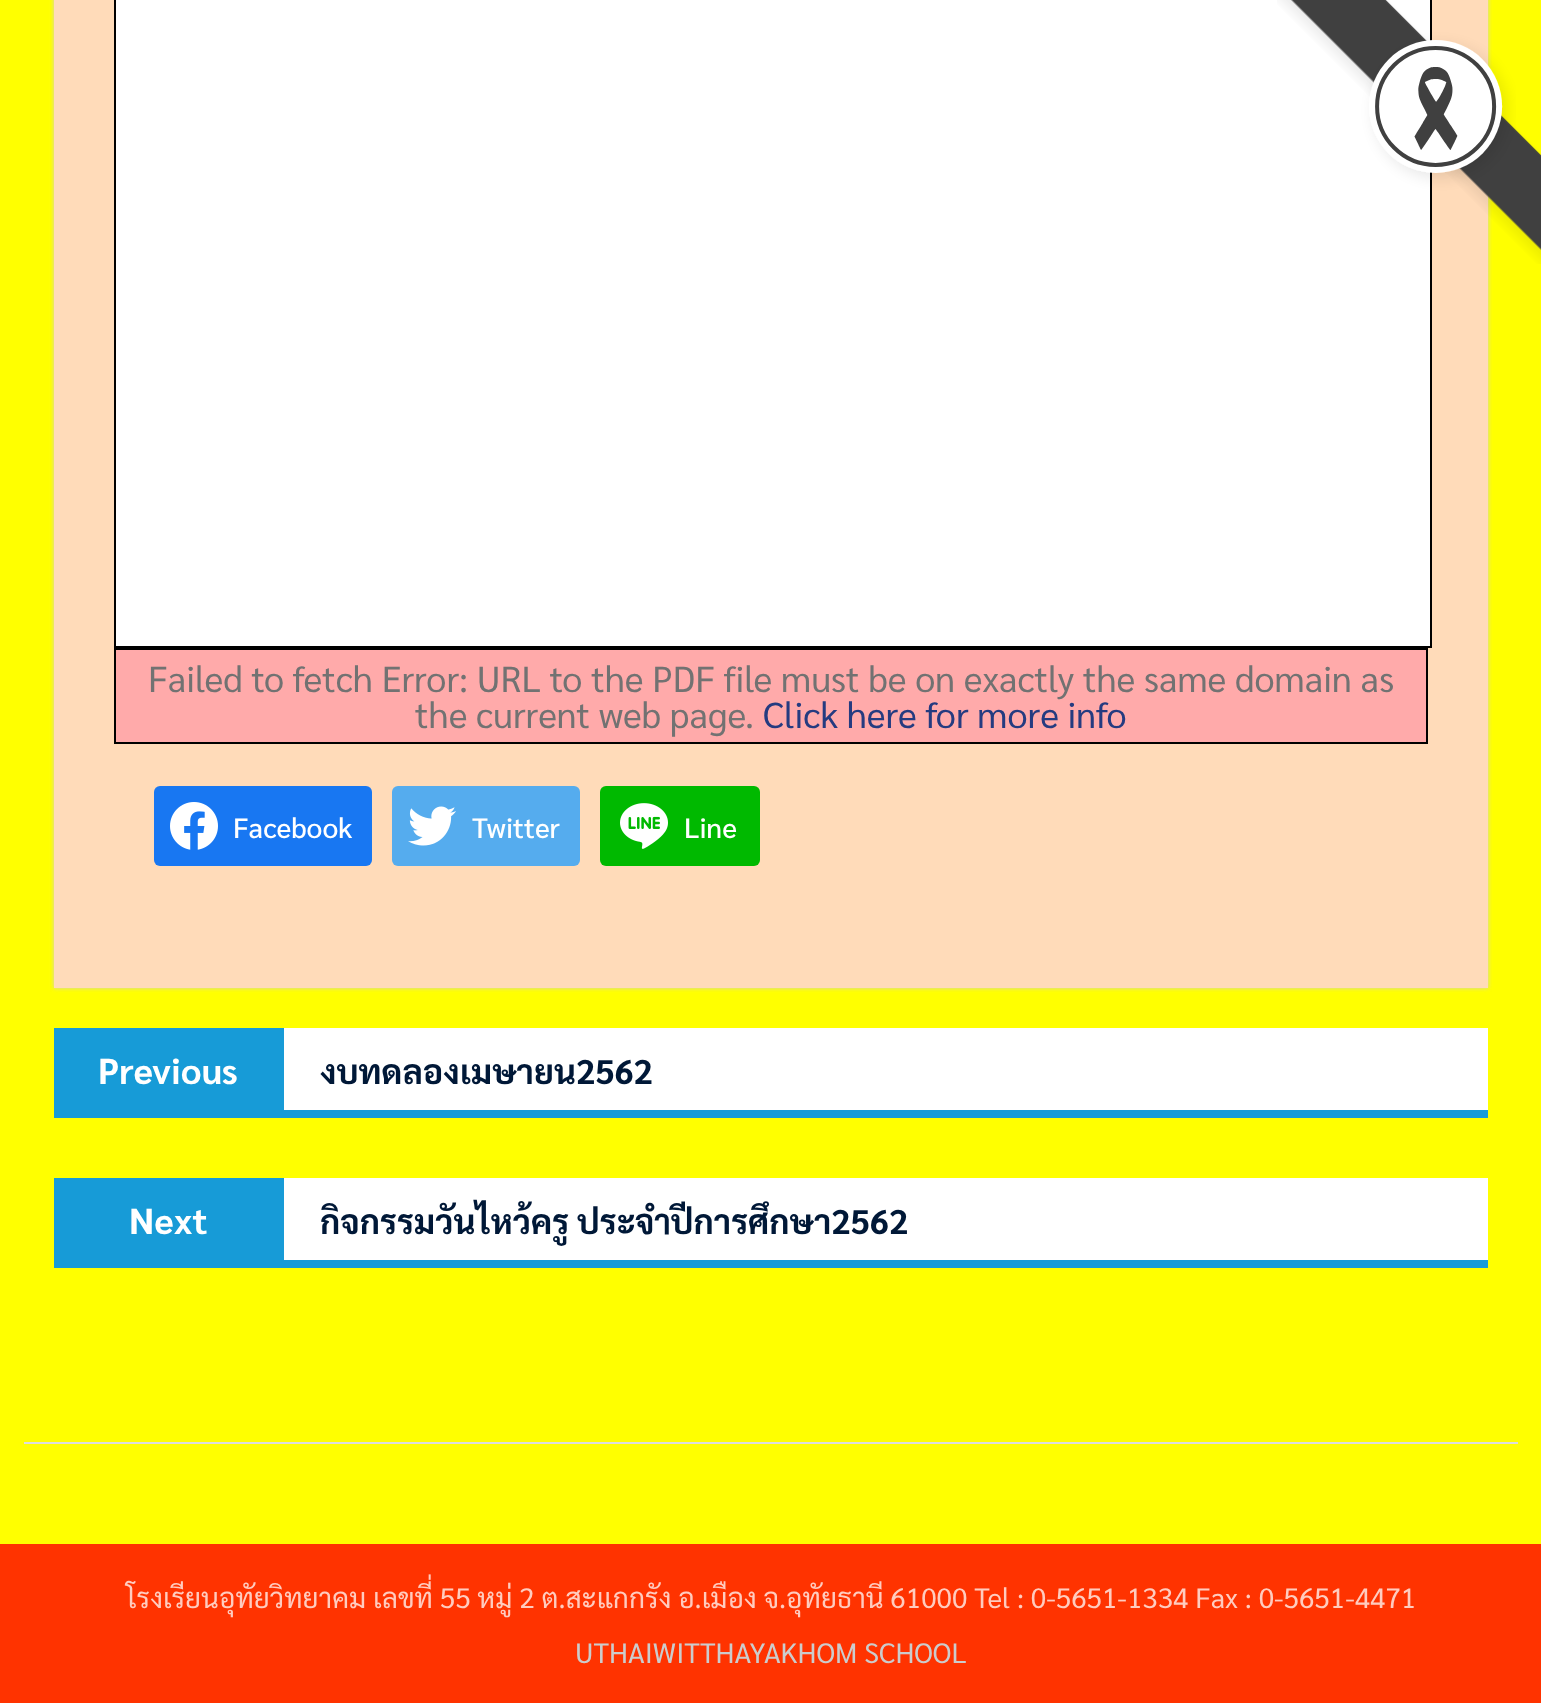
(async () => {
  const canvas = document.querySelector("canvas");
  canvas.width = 1541;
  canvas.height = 1703;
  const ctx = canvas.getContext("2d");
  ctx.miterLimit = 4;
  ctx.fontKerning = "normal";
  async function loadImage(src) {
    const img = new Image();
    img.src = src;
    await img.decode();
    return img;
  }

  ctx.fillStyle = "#ffff00";
  ctx.fillRect(0, 0, 1541, 1703);
  ctx.fillStyle = "#cfcfcf";
  ctx.filter = "blur(2px)";
  ctx.beginPath();
  ctx.rect(54, -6, 1434, 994);
  ctx.fill();
  ctx.filter = "none";
  ctx.fillStyle = "#ffdbb9";
  ctx.fillRect(54, 0, 1434, 988);
  ctx.strokeStyle = "#000000";
  ctx.lineWidth = 2;
  ctx.strokeRect(115, -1, 1316, 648);
  ctx.fillStyle = "#ffffff";
  ctx.fillRect(116, 0, 1314, 646);
  ctx.drawImage(await loadImage("img/1.png"), 1277, 0, 264, 264);
  ctx.fillStyle = "#dddddd";
  ctx.fillRect(24, 1442, 1494, 2);
  ctx.strokeRect(115, 649, 1312, 94);
  ctx.fillStyle = "#ffaaaa";
  ctx.fillRect(116, 650, 1310, 92);
  ctx.fillStyle = "#1877f2";
  ctx.beginPath();
  ctx.roundRect(154, 786, 218, 80, 6);
  ctx.fill();
  ctx.drawImage(await loadImage("img/2.png"), 170, 802, 48, 48);
  ctx.fillStyle = "#55acee";
  ctx.beginPath();
  ctx.roundRect(392, 786, 188, 80, 6);
  ctx.fill();
  ctx.drawImage(await loadImage("img/3.png"), 408, 806, 48, 40);
  ctx.fillStyle = "#00b900";
  ctx.beginPath();
  ctx.roundRect(600, 786, 160, 80, 6);
  ctx.fill();
  ctx.drawImage(await loadImage("img/4.png"), 620, 803, 48, 46);
  for (const [x, y, w, h, color] of [
    [54, 1110, 1434, 8, "#179bd7"],
    [284, 1028, 1204, 82, "#ffffff"],
    [54, 1028, 230, 82, "#179bd7"],
    [54, 1260, 1434, 8, "#179bd7"],
    [284, 1178, 1204, 82, "#ffffff"],
    [54, 1178, 230, 82, "#179bd7"],
    [0, 1544, 1541, 159, "#ff3300"],
  ]) {
    ctx.fillStyle = color;
    ctx.fillRect(x, y, w, h);
  }
  ctx.font = "36px Sarabun";
  ctx.fillStyle = "#727272";
  ctx.fillText("Failed to fetch Error: URL to the PDF file must be on exactly the same domain as", 148, 692);
  ctx.fillText("the current web page.", 415, 728);
  ctx.fillStyle = "#253b80";
  ctx.fillText("Click here for more info", 763, 728);
  ctx.font = "500 28px Sarabun";
  ctx.fillStyle = "#ffffff";
  for (const [text, x, y] of [
    ["Facebook", 233, 838],
    ["Twitter", 472, 838],
    ["Line", 684, 838],
  ]) {
    ctx.fillText(text, x, y);
  }
  ctx.font = "bold 36px Sarabun";
  ctx.fillText("Previous", 98, 1084);
  ctx.font = "bold 34px Sarabun";
  ctx.fillStyle = "#001837";
  ctx.fillText("งบทดลองเมษายน2562", 320, 1084);
  ctx.font = "bold 36px Sarabun";
  ctx.fillStyle = "#ffffff";
  ctx.fillText("Next", 129, 1234);
  ctx.font = "bold 34px Sarabun";
  ctx.fillStyle = "#001837";
  ctx.fillText("กิจกรรมวันไหว้ครู ประจำปีการศึกษา2562", 320, 1234);
  ctx.font = "28px Sarabun";
  ctx.fillStyle = "#ffccbf";
  ctx.fillText("โรงเรียนอุทัยวิทยาคม เลขที่ 55 หมู่ 2 ต.สะแกกรัง อ.เมือง จ.อุทัยธานี 61000 Tel : 0-5651-1334 Fax : 0-5651-4471", 126, 1608);
  ctx.fillStyle = "#cccccc";
  ctx.fillText("UTHAIWITTHAYAKHOM SCHOOL", 575, 1663);
})();
